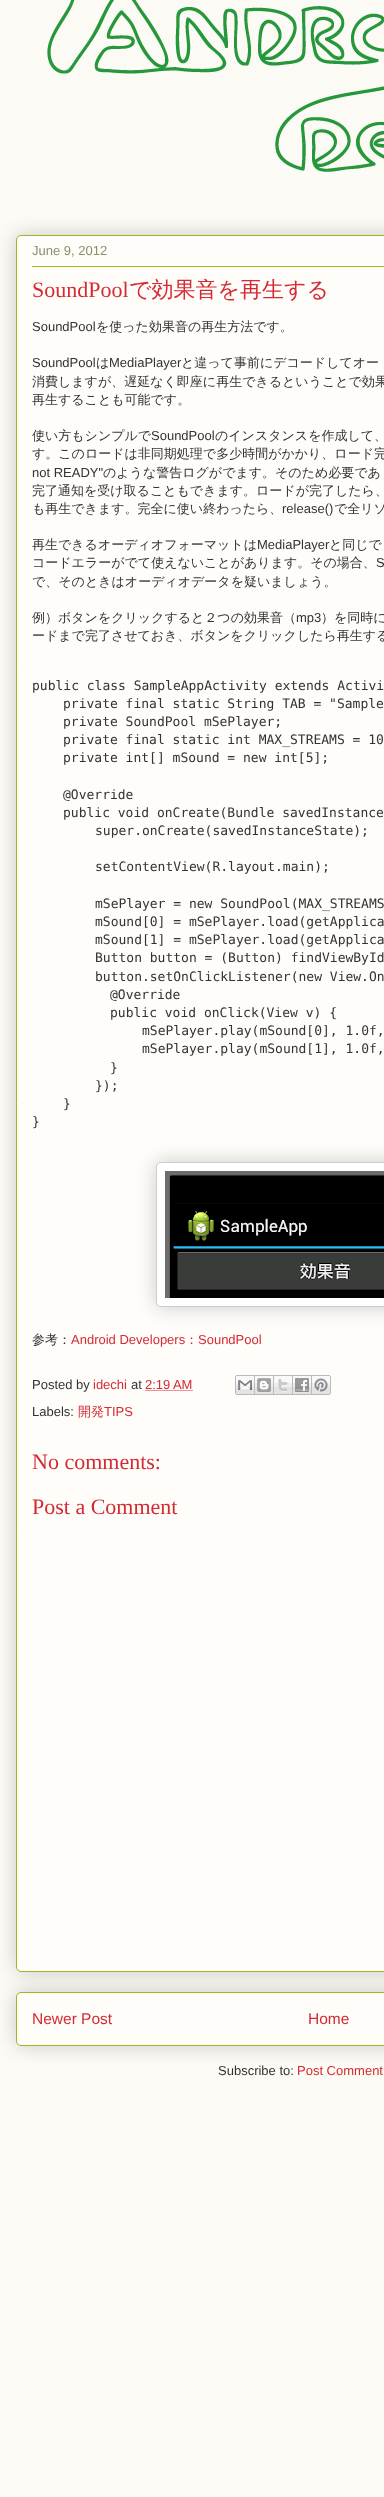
(async () => {
  const canvas = document.querySelector("canvas");
  canvas.width = 384;
  canvas.height = 2497;
  const ctx = canvas.getContext("2d");
  ctx.miterLimit = 4;
  ctx.fontKerning = "normal";
  async function loadImage(src) {
    const img = new Image();
    img.src = src;
    await img.decode();
    return img;
  }
  let path;

  ctx.fillStyle = "#fcfbf5";
  ctx.fillRect(0, 0, 384, 2497);
  ctx.drawImage(await loadImage("img/1.png"), 47, 0, 337, 172);
  ctx.fillStyle = "rgba(0, 0, 0, 0.2)";
  ctx.filter = "blur(10px)";
  ctx.beginPath();
  ctx.roundRect(16, 1992, 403, 54, 5);
  ctx.fill();
  ctx.filter = "none";
  ctx.fillStyle = "#fefdfa";
  ctx.beginPath();
  ctx.roundRect(16.5, 1992.5, 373, 53, 4.5);
  ctx.fill();
  ctx.strokeStyle = "#aab123";
  ctx.stroke();
  ctx.fillStyle = "rgba(0, 0, 0, 0.2)";
  ctx.filter = "blur(10px)";
  ctx.beginPath();
  ctx.roundRect(16, 235, 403, 1737, 5);
  ctx.fill();
  ctx.filter = "none";
  ctx.fillStyle = "#fefdfa";
  ctx.beginPath();
  ctx.roundRect(16.5, 235.5, 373, 1736, 4.5);
  ctx.fill();
  ctx.stroke();
  ctx.fillStyle = "#aab123";
  ctx.fillRect(32, 266, 352, 1);
  ctx.fillStyle = "rgba(0, 0, 0, 0.2)";
  ctx.filter = "blur(10px)";
  ctx.beginPath();
  ctx.roundRect(156, 1162, 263, 145, 5);
  ctx.fill();
  ctx.filter = "none";
  ctx.fillStyle = "#ffffff";
  ctx.beginPath();
  ctx.roundRect(156.5, 1162.5, 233, 144, 4.5);
  ctx.fill();
  ctx.strokeStyle = "#cccccc";
  ctx.stroke();
  ctx.drawImage(await loadImage("img/2.png"), 165, 1171, 219, 127);
  path = new Path2D("M145.5 1390.5H193");
  ctx.strokeStyle = "#d52a33";
  ctx.setLineDash([1, 1]);
  ctx.stroke(path);
  ctx.drawImage(await loadImage("img/3.png"), 235, 1375, 20, 20);
  ctx.drawImage(await loadImage("img/4.png"), 255, 1375, 19, 20);
  ctx.drawImage(await loadImage("img/5.png"), 274, 1375, 19, 20);
  ctx.drawImage(await loadImage("img/6.png"), 293, 1375, 19, 20);
  ctx.drawImage(await loadImage("img/7.png"), 312, 1375, 19, 20);
  ctx.font = "13px Liberation Sans";
  ctx.fillStyle = "#908d6a";
  ctx.fillText("June 9, 2012", 32, 255);
  ctx.font = "22px Liberation Serif";
  ctx.fillStyle = "#d52a33";
  ctx.fillText("SoundPool", 32, 297);
  ctx.font = "500 22px WenQuanYi Zen Hei";
  ctx.fillText("で効果音を再生する", 129, 297);
  ctx.font = "13px Liberation Sans";
  ctx.fillStyle = "#333333";
  ctx.fillText("SoundPool", 32, 331);
  ctx.font = "500 13px WenQuanYi Zen Hei";
  ctx.fillText("を使った効果音の再生方法です。", 96, 331);
  ctx.font = "13px Liberation Sans";
  ctx.fillText("SoundPool", 32, 367);
  ctx.font = "500 13px WenQuanYi Zen Hei";
  ctx.fillText("は", 96, 367);
  ctx.font = "13px Liberation Sans";
  ctx.fillText("MediaPlayer", 109, 367);
  ctx.font = "500 13px WenQuanYi Zen Hei";
  for (const [text, x, y] of [
    ["と違って事前にデコードしてオー", 181, 367],
    ["消費しますが、遅延なく即座に再生できるということで効果", 32, 386],
    ["再生することも可能です。", 32, 404],
    ["使い方もシンプルで", 32, 440],
  ]) {
    ctx.fillText(text, x, y);
  }
  ctx.font = "13px Liberation Sans";
  ctx.fillText("SoundPool", 151, 440);
  ctx.font = "500 13px WenQuanYi Zen Hei";
  ctx.fillText("のインスタンスを作成して、", 215, 440);
  ctx.fillText("す。このロードは非同期処理で多少時間がかかり、ロード完", 32, 458);
  ctx.font = "13px Liberation Sans";
  ctx.fillText("not READY\"", 32, 477);
  ctx.font = "500 13px WenQuanYi Zen Hei";
  for (const [text, x, y] of [
    ["のような警告ログがでます。そのため必要であ", 103, 477],
    ["完了通知を受け取ることもできます。ロードが完了したら、", 32, 495],
    ["も再生できます。完全に使い終わったら、", 32, 513],
  ]) {
    ctx.fillText(text, x, y);
  }
  ctx.font = "13px Liberation Sans";
  ctx.fillText("release()", 282, 513);
  ctx.font = "500 13px WenQuanYi Zen Hei";
  ctx.fillText("で全リソ", 334, 513);
  ctx.fillText("再生できるオーディオフォーマットは", 32, 549);
  ctx.font = "13px Liberation Sans";
  ctx.fillText("MediaPlayer", 257, 549);
  ctx.font = "500 13px WenQuanYi Zen Hei";
  ctx.fillText("と同じで", 329, 549);
  ctx.fillText("コードエラーがでて使えないことがあります。その場合、", 32, 567);
  ctx.font = "13px Liberation Sans";
  ctx.fillText("S", 376, 567);
  ctx.font = "500 13px WenQuanYi Zen Hei";
  ctx.fillText("で、そのときはオーディオデータを疑いましょう。", 32, 586);
  ctx.fillText("例）ボタンをクリックすると２つの効果音（", 32, 622);
  ctx.font = "13px Liberation Sans";
  ctx.fillText("mp3", 296, 622);
  ctx.font = "500 13px WenQuanYi Zen Hei";
  ctx.fillText("）を同時に", 321, 622);
  ctx.fillText("ードまで完了させておき、ボタンをクリックしたら再生する", 32, 640);
  ctx.font = "13px DejaVu Sans Mono";
  for (const [text, x, y] of [
    ["public class SampleAppActivity extends Activi", 32, 690],
    ["private final static String TAB = \"Sample", 63, 708],
    ["private SoundPool mSePlayer;", 63, 726],
    ["private final static int MAX_STREAMS = 10", 63, 744],
    ["private int[] mSound = new int[5];", 63, 762],
    ["@Override", 63, 799],
    ["public void onCreate(Bundle savedInstance", 63, 817],
    ["super.onCreate(savedInstanceState);", 95, 835],
    ["setContentView(R.layout.main);", 95, 871],
    ["mSePlayer = new SoundPool(MAX_STREAMS", 95, 908],
    ["mSound[0] = mSePlayer.load(getApplica", 95, 926],
    ["mSound[1] = mSePlayer.load(getApplica", 95, 944],
    ["Button button = (Button) findViewById", 95, 962],
    ["button.setOnClickListener(new View.On", 95, 981],
    ["@Override", 110, 999],
    ["public void onClick(View v) {", 110, 1017],
    ["mSePlayer.play(mSound[0], 1.0f,", 142, 1035],
    ["mSePlayer.play(mSound[1], 1.0f,", 142, 1053],
    ["}", 110, 1072],
    ["});", 95, 1090],
    ["}", 63, 1108],
    ["}", 32, 1126],
  ]) {
    ctx.fillText(text, x, y);
  }
  ctx.font = "500 13px WenQuanYi Zen Hei";
  ctx.fillText("参考：", 32, 1344);
  ctx.font = "13px Liberation Sans";
  ctx.fillStyle = "#d52a33";
  ctx.fillText("Android Developers", 71, 1344);
  ctx.font = "500 13px WenQuanYi Zen Hei";
  ctx.fillText("：", 185, 1344);
  ctx.font = "13px Liberation Sans";
  ctx.fillText("SoundPool", 198, 1344);
  ctx.fillStyle = "#333333";
  ctx.fillText("Posted by", 32, 1389);
  ctx.fillStyle = "#d52a33";
  ctx.fillText("idechi", 93, 1389);
  ctx.fillStyle = "#333333";
  ctx.fillText("at", 131, 1389);
  ctx.fillStyle = "#d52a33";
  ctx.fillText("2:19 AM", 145, 1389);
  ctx.fillStyle = "#333333";
  ctx.fillText("Labels:", 32, 1416);
  ctx.font = "500 13px WenQuanYi Zen Hei";
  ctx.fillStyle = "#d52a33";
  ctx.fillText("開発", 78, 1416);
  ctx.font = "13px Liberation Sans";
  ctx.fillText("TIPS", 104, 1416);
  ctx.font = "22px Liberation Serif";
  ctx.fillText("No comments:", 32, 1469);
  ctx.fillText("Post a Comment", 32, 1514);
  ctx.font = "15.5px Liberation Sans";
  ctx.fillText("Newer Post", 32, 2024);
  ctx.fillText("Home", 308, 2024);
  ctx.font = "13px Liberation Sans";
  ctx.fillStyle = "#333333";
  ctx.fillText("Subscribe to:", 218, 2075);
  ctx.fillStyle = "#d52a33";
  ctx.fillText("Post Comment", 297, 2075);
})();
